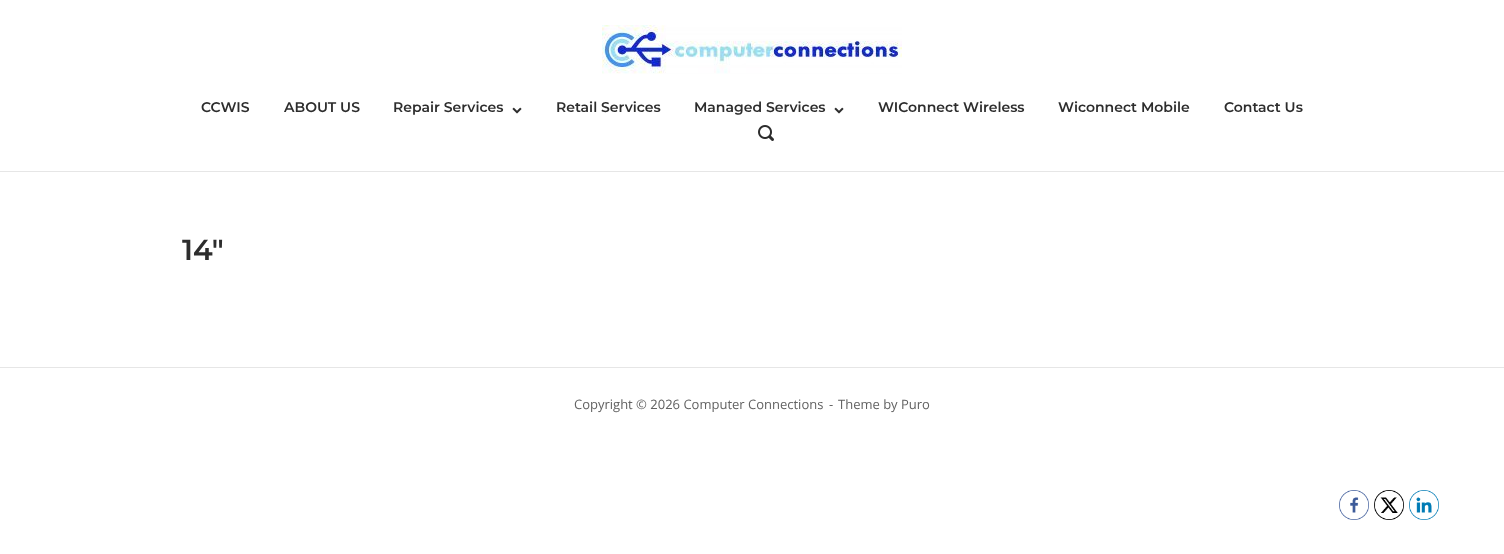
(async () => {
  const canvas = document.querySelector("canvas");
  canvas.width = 1504;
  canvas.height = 554;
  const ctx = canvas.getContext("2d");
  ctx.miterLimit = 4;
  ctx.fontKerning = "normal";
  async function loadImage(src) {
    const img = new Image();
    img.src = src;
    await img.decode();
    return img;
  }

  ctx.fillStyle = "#ffffff";
  ctx.fillRect(0, 0, 1504, 554);
  ctx.fillStyle = "#e6e6e6";
  ctx.fillRect(0, 171, 1504, 1);
  ctx.drawImage(await loadImage("img/1.png"), 602, 25, 300, 49);
  ctx.drawImage(await loadImage("img/2.png"), 512, 107, 10, 7);
  ctx.drawImage(await loadImage("img/2.png"), 834, 107, 10, 7);
  ctx.drawImage(await loadImage("img/3.png"), 758, 125, 16, 16);
  ctx.fillRect(0, 367, 1504, 1);
  ctx.drawImage(await loadImage("img/4.png"), 1339, 490, 30, 30);
  ctx.drawImage(await loadImage("img/5.png"), 1374, 490, 30, 30);
  ctx.drawImage(await loadImage("img/6.png"), 1409, 490, 30, 30);
  ctx.font = "600 14px Montserrat";
  ctx.fillStyle = "#2d2d2d";
  for (const [text, x, y] of [
    ["CCWIS", 201, 112],
    ["ABOUT US", 284, 112],
    ["Repair Services", 393, 112],
    ["Retail Services", 556, 112],
    ["Managed Services", 694, 112],
    ["WIConnect Wireless", 878, 112],
    ["Wiconnect Mobile", 1058, 112],
    ["Contact Us", 1224, 112],
  ]) {
    ctx.fillText(text, x, y);
  }
  ctx.font = "600 29px Montserrat";
  ctx.fillText("14″", 182, 260);
  ctx.font = "13px Open Sans";
  ctx.fillStyle = "#626262";
  for (const [text, x, y] of [
    ["Copyright © 2026 Computer Connections", 574, 409],
    ["-", 829, 409],
    ["Theme by Puro", 838, 409],
  ]) {
    ctx.fillText(text, x, y);
  }
})();
